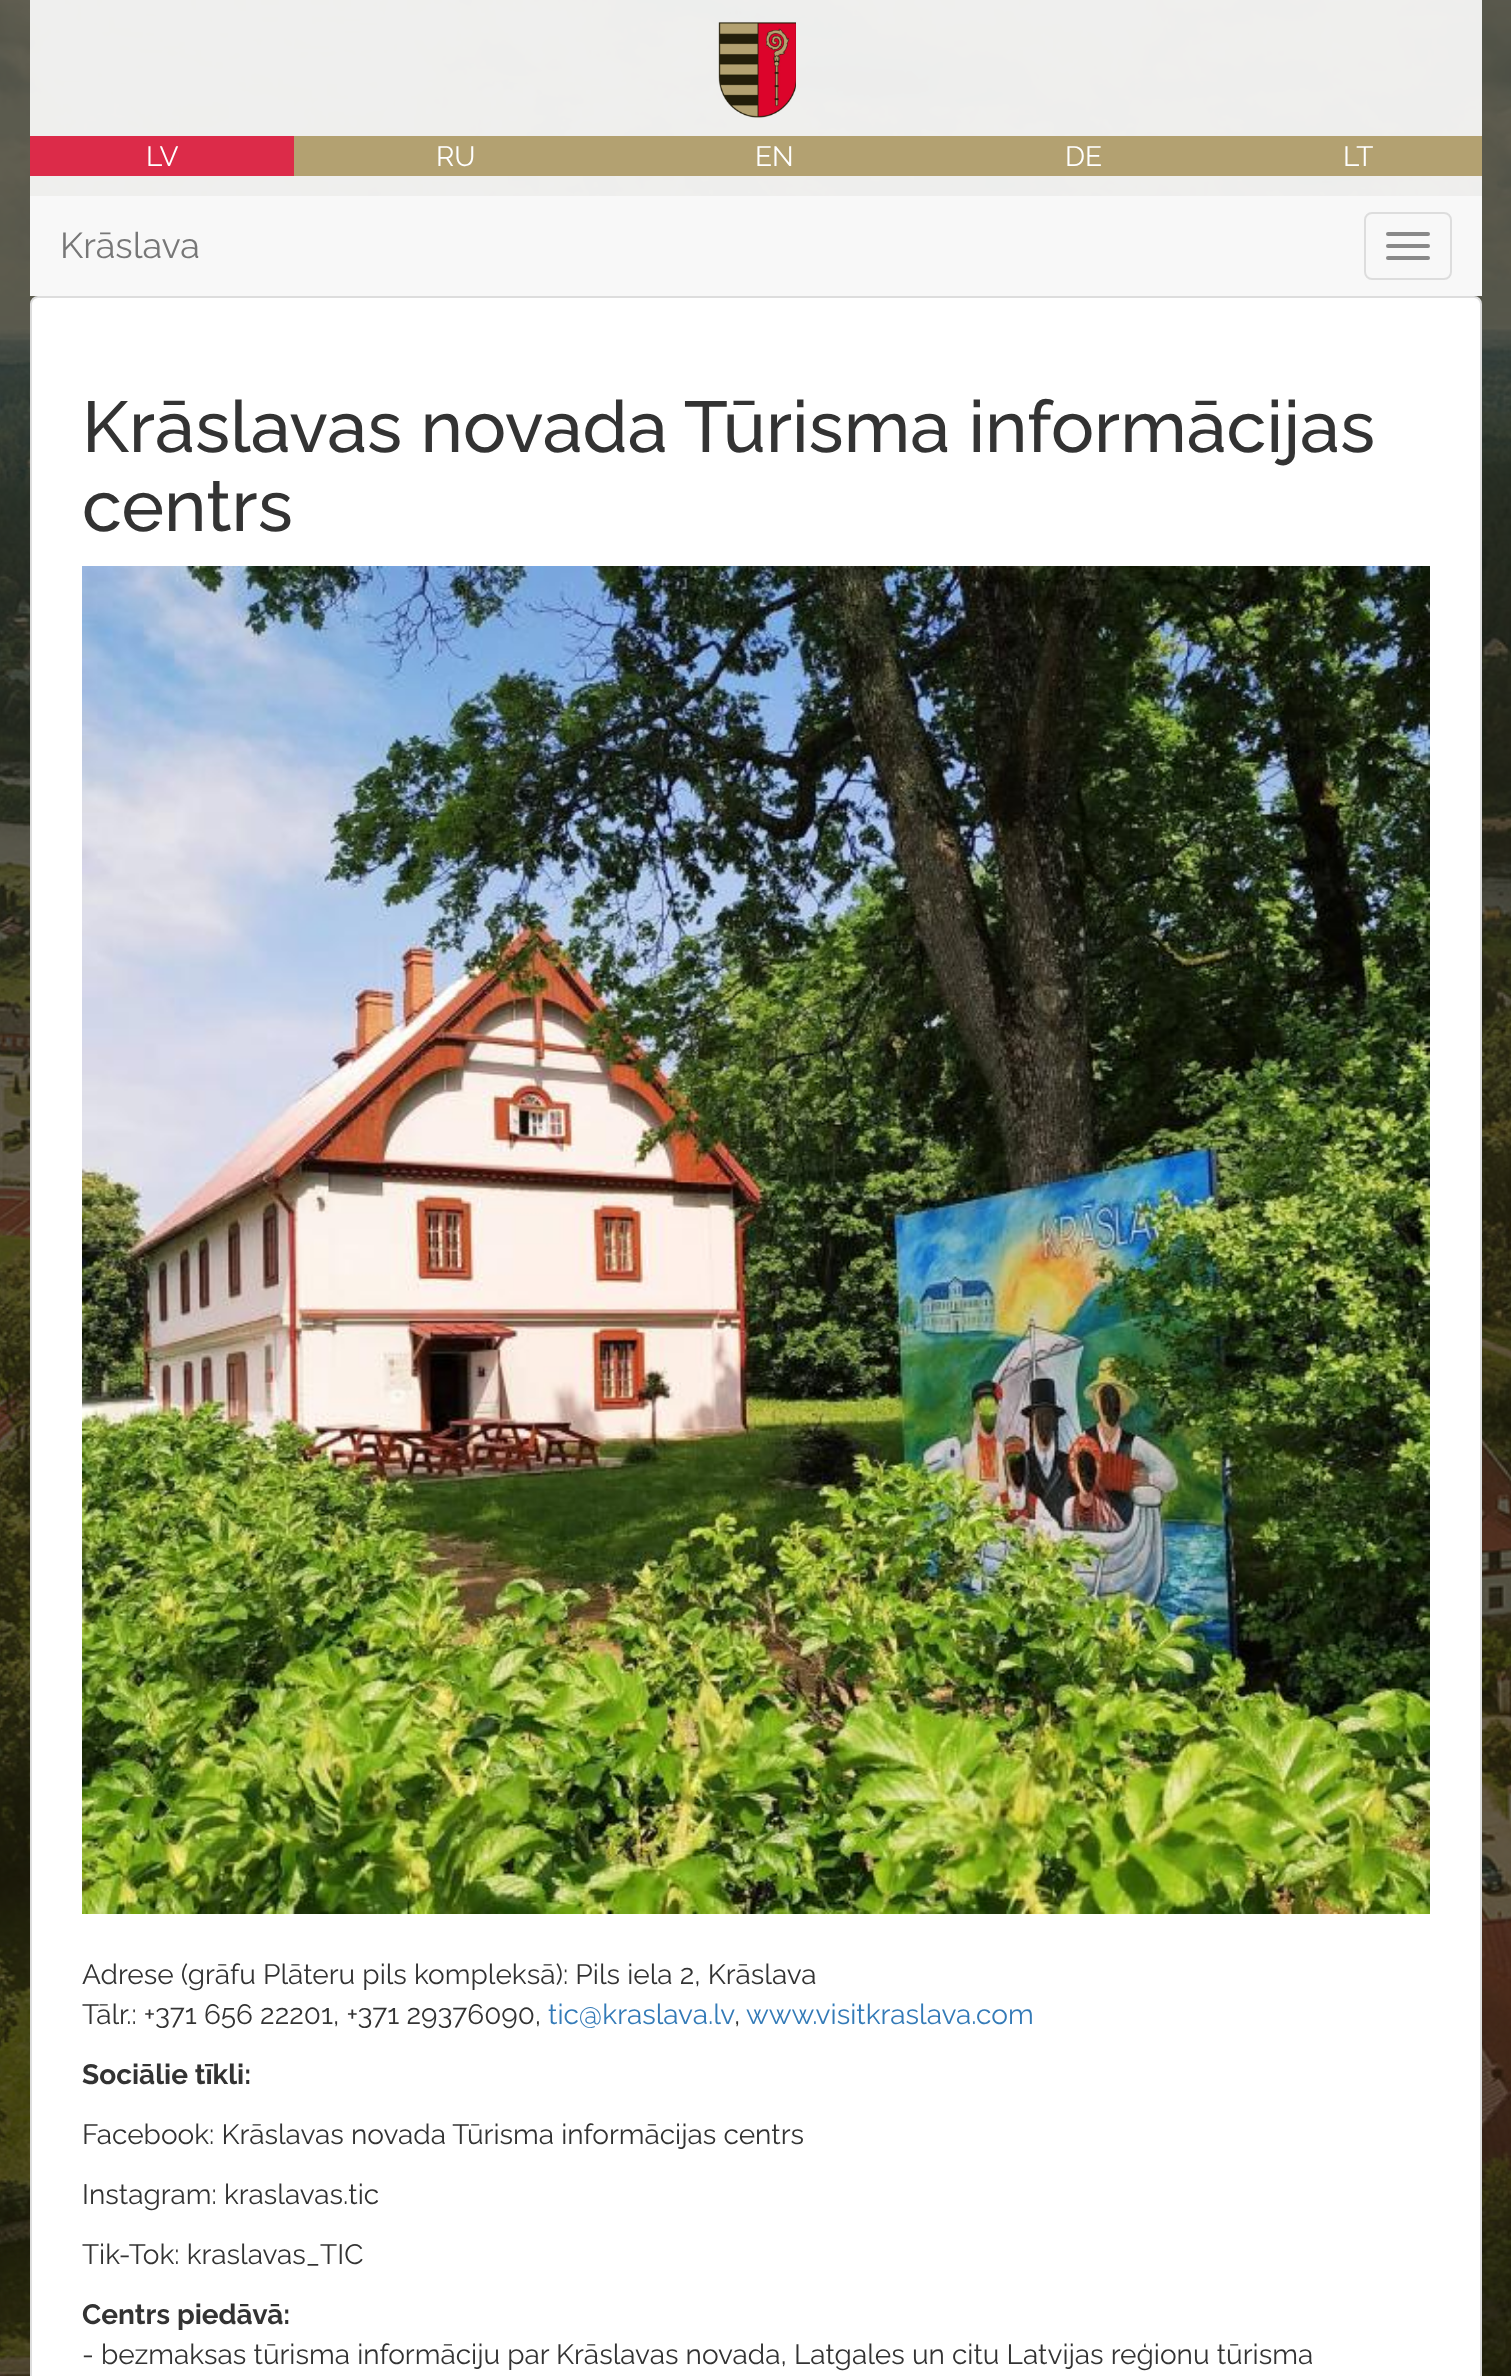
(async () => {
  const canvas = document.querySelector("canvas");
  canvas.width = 1511;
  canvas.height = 2376;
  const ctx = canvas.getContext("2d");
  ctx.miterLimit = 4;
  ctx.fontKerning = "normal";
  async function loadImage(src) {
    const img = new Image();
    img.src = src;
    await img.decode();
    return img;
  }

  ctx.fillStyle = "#ffffff";
  ctx.fillRect(0, 0, 1511, 2376);
  ctx.drawImage(await loadImage("img/1.png"), 0, 0, 1511, 2376);
  ctx.fillStyle = "rgba(255, 255, 255, 0.9)";
  ctx.fillRect(30, 0, 1452, 196);
  ctx.drawImage(await loadImage("img/2.png"), 718, 22, 78, 96);
  for (const [x, y, w, h, color] of [
    [294, 136, 1188, 40, "#b3a171"],
    [30, 136, 264, 40, "#dc2b49"],
    [30, 196, 1452, 100, "#f8f8f8"],
  ]) {
    ctx.fillStyle = color;
    ctx.fillRect(x, y, w, h);
  }
  ctx.beginPath();
  ctx.roundRect(1365, 213, 86, 66, 7);
  ctx.strokeStyle = "#dddddd";
  ctx.lineWidth = 2;
  ctx.stroke();
  ctx.fillStyle = "#888888";
  ctx.beginPath();
  ctx.roundRect(1386, 232, 44, 4, 2);
  ctx.fill();
  ctx.beginPath();
  ctx.roundRect(1386, 244, 44, 4, 2);
  ctx.fill();
  ctx.beginPath();
  ctx.roundRect(1386, 256, 44, 4, 2);
  ctx.fill();
  ctx.fillStyle = "#ffffff";
  ctx.beginPath();
  ctx.roundRect(31, 297, 1450, 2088, 7);
  ctx.fill();
  ctx.stroke();
  ctx.drawImage(await loadImage("img/3.png"), 82, 566, 1348, 1348);
  ctx.font = "28px Raleway";
  for (const [text, x, y] of [
    ["LV", 146, 166],
    ["RU", 436, 166],
    ["EN", 755, 166],
    ["DE", 1065, 166],
    ["LT", 1343, 166],
  ]) {
    ctx.fillText(text, x, y);
  }
  ctx.font = "36px Raleway";
  ctx.fillStyle = "#777777";
  ctx.fillText("Krāslava", 60, 258);
  ctx.font = "500 72px Raleway";
  ctx.fillStyle = "#333333";
  ctx.fillText("Krāslavas novada Tūrisma informācijas", 82, 452);
  ctx.fillText("centrs", 82, 531);
  ctx.font = "28px Raleway";
  ctx.fillText("Adrese (grāfu Plāteru pils kompleksā): Pils iela 2, Krāslava", 82, 1984);
  ctx.fillText("Tālr.: +371 656 22201, +371 29376090,", 82, 2024);
  ctx.fillStyle = "#337ab7";
  ctx.fillText("tic@kraslava.lv", 548, 2024);
  ctx.fillStyle = "#333333";
  ctx.fillText(",", 734, 2024);
  ctx.fillStyle = "#337ab7";
  ctx.fillText("www.visitkraslava.com", 746, 2024);
  ctx.font = "bold 28px Raleway";
  ctx.fillStyle = "#333333";
  ctx.fillText("Sociālie tīkli:", 82, 2084);
  ctx.font = "28px Raleway";
  for (const [text, x, y] of [
    ["Facebook: Krāslavas novada Tūrisma informācijas centrs", 82, 2144],
    ["Instagram: kraslavas.tic", 82, 2204],
    ["Tik-Tok: kraslavas_TIC", 82, 2264],
  ]) {
    ctx.fillText(text, x, y);
  }
  ctx.font = "bold 28px Raleway";
  ctx.fillText("Centrs piedāvā:", 82, 2324);
  ctx.font = "28px Raleway";
  ctx.fillText("- bezmaksas tūrisma informāciju par Krāslavas novada, Latgales un citu Latvijas reģionu tūrisma", 82, 2364);
})();
